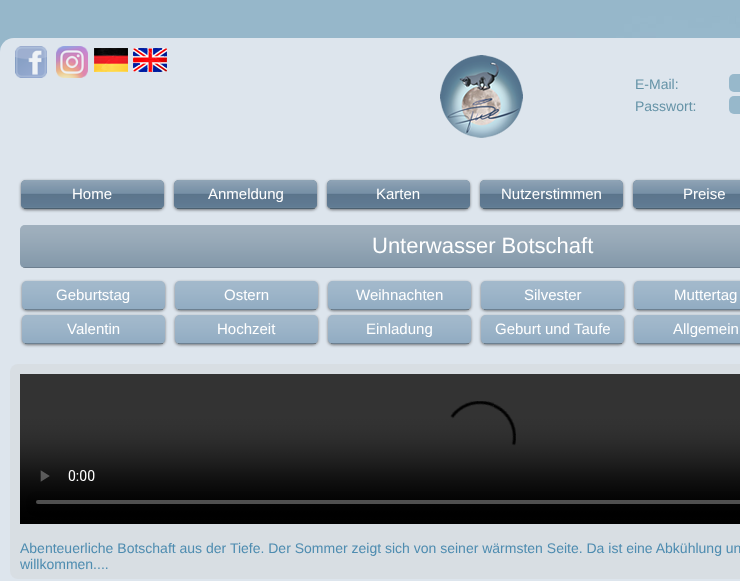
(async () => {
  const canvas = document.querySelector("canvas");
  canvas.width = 740;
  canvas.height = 581;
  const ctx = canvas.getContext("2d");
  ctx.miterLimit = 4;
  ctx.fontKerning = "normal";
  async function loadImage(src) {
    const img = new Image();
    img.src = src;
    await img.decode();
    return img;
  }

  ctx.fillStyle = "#ffffff";
  ctx.fillRect(0, 0, 740, 581);
  ctx.drawImage(await loadImage("img/1.png"), 0, 0, 740, 52);
  ctx.fillStyle = "#dde5ed";
  ctx.beginPath();
  ctx.roundRect(0, 38, 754, 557, 14);
  ctx.fill();
  ctx.drawImage(await loadImage("img/2.png"), 15, 46, 32, 32);
  ctx.drawImage(await loadImage("img/3.png"), 56, 46, 32, 32);
  ctx.drawImage(await loadImage("img/4.png"), 94, 48, 34, 24);
  ctx.drawImage(await loadImage("img/5.png"), 133, 48, 34, 24);
  ctx.drawImage(await loadImage("img/6.png"), 440, 55, 83, 83);
  ctx.fillStyle = "#97b8cb";
  ctx.beginPath();
  ctx.roundRect(729, 74, 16, 18, 5);
  ctx.fill();
  ctx.beginPath();
  ctx.roundRect(729, 96, 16, 18, 5);
  ctx.fill();
  ctx.fillStyle = "rgba(0, 0, 0, 0.5)";
  ctx.filter = "blur(1.5px)";
  ctx.beginPath();
  ctx.roundRect(21, 181, 143, 29, 5);
  ctx.fill();
  ctx.filter = "none";
  ctx.fillStyle = "#668096";
  ctx.beginPath();
  ctx.roundRect(21, 180, 143, 29, 5);
  ctx.fill();
  ctx.drawImage(await loadImage("img/7.png"), 21, 180, 143, 27);
  ctx.fillStyle = "rgba(0, 0, 0, 0.25)";
  ctx.fillRect(24, 208, 138, 1);
  ctx.fillStyle = "rgba(0, 0, 0, 0.5)";
  ctx.filter = "blur(1.5px)";
  ctx.beginPath();
  ctx.roundRect(174, 181, 143, 29, 5);
  ctx.fill();
  ctx.filter = "none";
  ctx.fillStyle = "#668096";
  ctx.beginPath();
  ctx.roundRect(174, 180, 143, 29, 5);
  ctx.fill();
  ctx.drawImage(await loadImage("img/7.png"), 174, 180, 143, 27);
  ctx.fillStyle = "rgba(0, 0, 0, 0.25)";
  ctx.fillRect(177, 208, 138, 1);
  ctx.fillStyle = "rgba(0, 0, 0, 0.5)";
  ctx.filter = "blur(1.5px)";
  ctx.beginPath();
  ctx.roundRect(327, 181, 143, 29, 5);
  ctx.fill();
  ctx.filter = "none";
  ctx.fillStyle = "#668096";
  ctx.beginPath();
  ctx.roundRect(327, 180, 143, 29, 5);
  ctx.fill();
  ctx.drawImage(await loadImage("img/8.png"), 327, 180, 143, 27);
  ctx.fillStyle = "rgba(0, 0, 0, 0.25)";
  ctx.fillRect(330, 208, 138, 1);
  ctx.fillStyle = "rgba(0, 0, 0, 0.5)";
  ctx.filter = "blur(1.5px)";
  ctx.beginPath();
  ctx.roundRect(480, 181, 143, 29, 5);
  ctx.fill();
  ctx.filter = "none";
  ctx.fillStyle = "#668096";
  ctx.beginPath();
  ctx.roundRect(480, 180, 143, 29, 5);
  ctx.fill();
  ctx.drawImage(await loadImage("img/7.png"), 480, 180, 143, 27);
  ctx.fillStyle = "rgba(0, 0, 0, 0.25)";
  ctx.fillRect(483, 208, 138, 1);
  ctx.fillStyle = "rgba(0, 0, 0, 0.5)";
  ctx.filter = "blur(1.5px)";
  ctx.beginPath();
  ctx.roundRect(633, 181, 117, 29, 5);
  ctx.fill();
  ctx.filter = "none";
  ctx.fillStyle = "#668096";
  ctx.beginPath();
  ctx.roundRect(633, 180, 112, 29, 5);
  ctx.fill();
  ctx.drawImage(await loadImage("img/9.png"), 633, 180, 107, 27);
  ctx.fillStyle = "rgba(0, 0, 0, 0.25)";
  ctx.fillRect(636, 208, 104, 1);
  ctx.fillStyle = "#8096a8";
  ctx.beginPath();
  ctx.roundRect(20, 225, 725, 43, 5);
  ctx.fill();
  ctx.drawImage(await loadImage("img/10.png"), 20, 225, 720, 42);
  ctx.fillStyle = "rgba(0, 0, 0, 0.15)";
  ctx.fillRect(23, 267, 717, 1);
  ctx.fillStyle = "rgba(0, 0, 0, 0.5)";
  ctx.filter = "blur(1.5px)";
  ctx.beginPath();
  ctx.roundRect(22, 282, 143, 29, 5);
  ctx.fill();
  ctx.filter = "none";
  ctx.fillStyle = "#84a2bb";
  ctx.beginPath();
  ctx.roundRect(22, 281, 143, 29, 5);
  ctx.fill();
  ctx.drawImage(await loadImage("img/11.png"), 22, 281, 143, 29);
  ctx.fillStyle = "rgba(0, 0, 0, 0.25)";
  ctx.fillRect(25, 309, 138, 1);
  ctx.fillStyle = "rgba(0, 0, 0, 0.5)";
  ctx.filter = "blur(1.5px)";
  ctx.beginPath();
  ctx.roundRect(175, 282, 143, 29, 5);
  ctx.fill();
  ctx.filter = "none";
  ctx.fillStyle = "#84a2bb";
  ctx.beginPath();
  ctx.roundRect(175, 281, 143, 29, 5);
  ctx.fill();
  ctx.drawImage(await loadImage("img/11.png"), 175, 281, 143, 29);
  ctx.fillStyle = "rgba(0, 0, 0, 0.25)";
  ctx.fillRect(178, 309, 138, 1);
  ctx.fillStyle = "rgba(0, 0, 0, 0.5)";
  ctx.filter = "blur(1.5px)";
  ctx.beginPath();
  ctx.roundRect(328, 282, 143, 29, 5);
  ctx.fill();
  ctx.filter = "none";
  ctx.fillStyle = "#84a2bb";
  ctx.beginPath();
  ctx.roundRect(328, 281, 143, 29, 5);
  ctx.fill();
  ctx.drawImage(await loadImage("img/12.png"), 328, 281, 143, 29);
  ctx.fillStyle = "rgba(0, 0, 0, 0.25)";
  ctx.fillRect(331, 309, 138, 1);
  ctx.fillStyle = "rgba(0, 0, 0, 0.5)";
  ctx.filter = "blur(1.5px)";
  ctx.beginPath();
  ctx.roundRect(481, 282, 143, 29, 5);
  ctx.fill();
  ctx.filter = "none";
  ctx.fillStyle = "#84a2bb";
  ctx.beginPath();
  ctx.roundRect(481, 281, 143, 29, 5);
  ctx.fill();
  ctx.drawImage(await loadImage("img/11.png"), 481, 281, 143, 29);
  ctx.fillStyle = "rgba(0, 0, 0, 0.25)";
  ctx.fillRect(484, 309, 138, 1);
  ctx.fillStyle = "rgba(0, 0, 0, 0.5)";
  ctx.filter = "blur(1.5px)";
  ctx.beginPath();
  ctx.roundRect(634, 282, 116, 29, 5);
  ctx.fill();
  ctx.filter = "none";
  ctx.fillStyle = "#84a2bb";
  ctx.beginPath();
  ctx.roundRect(634, 281, 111, 29, 5);
  ctx.fill();
  ctx.drawImage(await loadImage("img/13.png"), 634, 281, 106, 29);
  ctx.fillStyle = "rgba(0, 0, 0, 0.25)";
  ctx.fillRect(637, 309, 103, 1);
  ctx.fillStyle = "rgba(0, 0, 0, 0.5)";
  ctx.filter = "blur(1.5px)";
  ctx.beginPath();
  ctx.roundRect(22, 316, 143, 29, 5);
  ctx.fill();
  ctx.filter = "none";
  ctx.fillStyle = "#84a2bb";
  ctx.beginPath();
  ctx.roundRect(22, 315, 143, 29, 5);
  ctx.fill();
  ctx.drawImage(await loadImage("img/11.png"), 22, 315, 143, 29);
  ctx.fillStyle = "rgba(0, 0, 0, 0.25)";
  ctx.fillRect(25, 343, 138, 1);
  ctx.fillStyle = "rgba(0, 0, 0, 0.5)";
  ctx.filter = "blur(1.5px)";
  ctx.beginPath();
  ctx.roundRect(175, 316, 143, 29, 5);
  ctx.fill();
  ctx.filter = "none";
  ctx.fillStyle = "#84a2bb";
  ctx.beginPath();
  ctx.roundRect(175, 315, 143, 29, 5);
  ctx.fill();
  ctx.drawImage(await loadImage("img/11.png"), 175, 315, 143, 29);
  ctx.fillStyle = "rgba(0, 0, 0, 0.25)";
  ctx.fillRect(178, 343, 138, 1);
  ctx.fillStyle = "rgba(0, 0, 0, 0.5)";
  ctx.filter = "blur(1.5px)";
  ctx.beginPath();
  ctx.roundRect(328, 316, 143, 29, 5);
  ctx.fill();
  ctx.filter = "none";
  ctx.fillStyle = "#84a2bb";
  ctx.beginPath();
  ctx.roundRect(328, 315, 143, 29, 5);
  ctx.fill();
  ctx.drawImage(await loadImage("img/12.png"), 328, 315, 143, 29);
  ctx.fillStyle = "rgba(0, 0, 0, 0.25)";
  ctx.fillRect(331, 343, 138, 1);
  ctx.fillStyle = "rgba(0, 0, 0, 0.5)";
  ctx.filter = "blur(1.5px)";
  ctx.beginPath();
  ctx.roundRect(481, 316, 143, 29, 5);
  ctx.fill();
  ctx.filter = "none";
  ctx.fillStyle = "#84a2bb";
  ctx.beginPath();
  ctx.roundRect(481, 315, 143, 29, 5);
  ctx.fill();
  ctx.drawImage(await loadImage("img/11.png"), 481, 315, 143, 29);
  ctx.fillStyle = "rgba(0, 0, 0, 0.25)";
  ctx.fillRect(484, 343, 138, 1);
  ctx.fillStyle = "rgba(0, 0, 0, 0.5)";
  ctx.filter = "blur(1.5px)";
  ctx.beginPath();
  ctx.roundRect(634, 316, 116, 29, 5);
  ctx.fill();
  ctx.filter = "none";
  ctx.fillStyle = "#84a2bb";
  ctx.beginPath();
  ctx.roundRect(634, 315, 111, 29, 5);
  ctx.fill();
  ctx.drawImage(await loadImage("img/13.png"), 634, 315, 106, 29);
  ctx.fillStyle = "rgba(0, 0, 0, 0.25)";
  ctx.fillRect(637, 343, 103, 1);
  ctx.fillStyle = "#d8dee3";
  ctx.beginPath();
  ctx.roundRect(10, 364, 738, 215, 8);
  ctx.fill();
  ctx.drawImage(await loadImage("img/14.png"), 20, 374, 720, 150);
  ctx.font = "14px Liberation Sans";
  ctx.fillStyle = "#6593a7";
  ctx.fillText("E-Mail:", 635, 89);
  ctx.fillText("Passwort:", 635, 111);
  ctx.font = "15px Liberation Sans";
  ctx.fillStyle = "#ffffff";
  for (const [text, x, y] of [
    ["Home", 72, 199],
    ["Anmeldung", 208, 199],
    ["Karten", 376, 199],
    ["Nutzerstimmen", 501, 199],
    ["Preise", 683, 199],
  ]) {
    ctx.fillText(text, x, y);
  }
  ctx.font = "22px Liberation Sans";
  ctx.fillText("Unterwasser Botschaft", 372, 253);
  ctx.font = "15px Liberation Sans";
  for (const [text, x, y] of [
    ["Geburtstag", 56, 300],
    ["Ostern", 224, 300],
    ["Weihnachten", 356, 300],
    ["Silvester", 524, 300],
    ["Muttertag", 674, 300],
    ["Valentin", 67, 334],
    ["Hochzeit", 217, 334],
    ["Einladung", 366, 334],
    ["Geburt und Taufe", 495, 334],
    ["Allgemein", 673, 334],
  ]) {
    ctx.fillText(text, x, y);
  }
  ctx.font = "14px Liberation Sans";
  ctx.fillStyle = "#4e8cb0";
  ctx.fillText("Abenteuerliche Botschaft aus der Tiefe. Der Sommer zeigt sich von seiner wärmsten Seite. Da ist eine Abkühlung un", 20, 553);
  ctx.fillText("willkommen....", 20, 569);
})();
